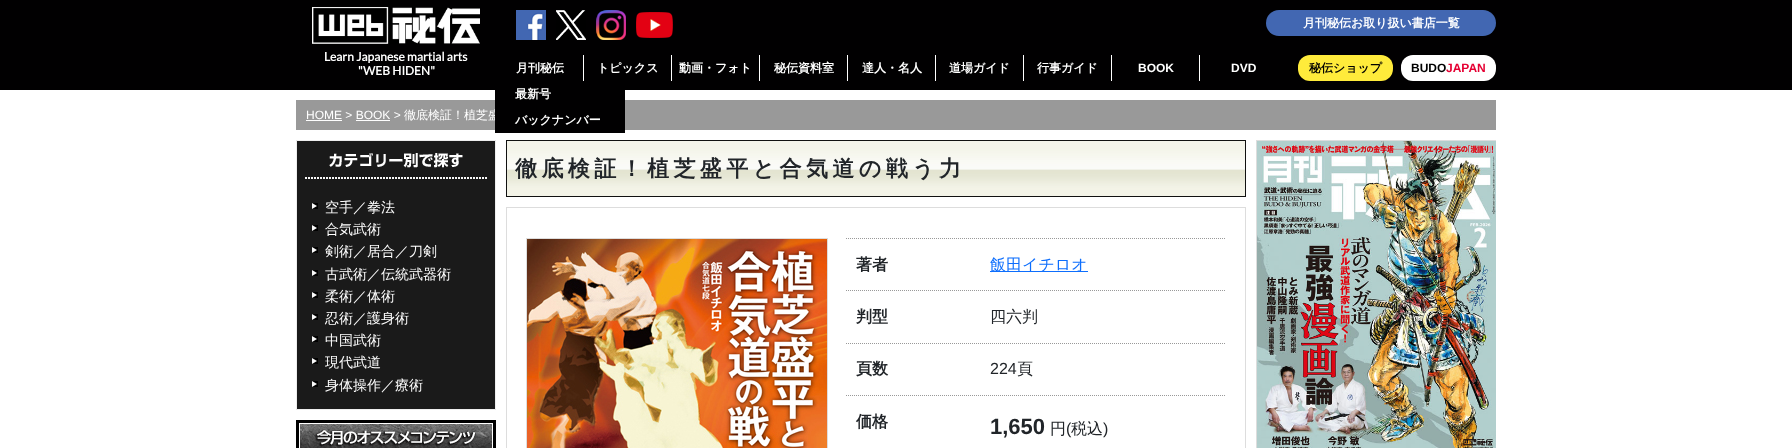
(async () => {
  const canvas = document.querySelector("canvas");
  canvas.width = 1792;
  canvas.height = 448;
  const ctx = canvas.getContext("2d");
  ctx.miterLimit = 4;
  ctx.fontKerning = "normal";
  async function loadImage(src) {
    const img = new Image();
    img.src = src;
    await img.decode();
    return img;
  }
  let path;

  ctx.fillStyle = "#ffffff";
  ctx.fillRect(0, 0, 1792, 448);
  ctx.fillStyle = "#010001";
  ctx.fillRect(0, 0, 1792, 90);
  ctx.drawImage(await loadImage("img/1.png"), 516, 10, 30, 30);
  ctx.drawImage(await loadImage("img/2.png"), 556, 10, 30, 30);
  ctx.drawImage(await loadImage("img/3.png"), 596, 10, 30, 30);
  ctx.drawImage(await loadImage("img/4.png"), 636, 12, 37, 26);
  ctx.fillStyle = "#4267b2";
  ctx.beginPath();
  ctx.roundRect(1266, 10, 230, 26, 13);
  ctx.fill();
  ctx.drawImage(await loadImage("img/5.png"), 312, 7, 168, 37);
  for (const [x, y, w, h, color] of [
    [583, 55, 1, 26, "#ffffff"],
    [671, 55, 1, 26, "#ffffff"],
    [759, 55, 1, 26, "#ffffff"],
    [847, 55, 1, 26, "#ffffff"],
    [935, 55, 1, 26, "#ffffff"],
    [1023, 55, 1, 26, "#ffffff"],
    [1111, 55, 1, 26, "#ffffff"],
    [1199, 55, 1, 26, "#ffffff"],
  ]) {
    ctx.fillStyle = color;
    ctx.fillRect(x, y, w, h);
  }
  ctx.fillStyle = "#ffeb3b";
  ctx.beginPath();
  ctx.roundRect(1298, 55, 95, 26, 12);
  ctx.fill();
  ctx.fillStyle = "#ffffff";
  ctx.beginPath();
  ctx.roundRect(1401, 55, 95, 26, 12);
  ctx.fill();
  for (const [x, y, w, h, color] of [
    [296, 100, 1200, 30, "#999999"],
    [306, 120, 36, 1, "#ffffff"],
    [356, 120, 34, 1, "#ffffff"],
  ]) {
    ctx.fillStyle = color;
    ctx.fillRect(x, y, w, h);
  }
  ctx.fillStyle = "#1a1a1a";
  ctx.beginPath();
  ctx.rect(296.5, 140.5, 199, 269);
  ctx.fill();
  ctx.strokeStyle = "#eeeeee";
  ctx.stroke();
  ctx.drawImage(await loadImage("img/6.png"), 305, 153, 182, 26);
  ctx.drawImage(await loadImage("img/7.png"), 312, 203, 6, 6);
  ctx.drawImage(await loadImage("img/7.png"), 312, 225, 6, 6);
  ctx.drawImage(await loadImage("img/7.png"), 312, 247, 6, 6);
  ctx.drawImage(await loadImage("img/7.png"), 312, 270, 6, 6);
  ctx.drawImage(await loadImage("img/7.png"), 312, 292, 6, 6);
  ctx.drawImage(await loadImage("img/7.png"), 312, 314, 6, 6);
  ctx.drawImage(await loadImage("img/7.png"), 312, 336, 6, 6);
  ctx.drawImage(await loadImage("img/7.png"), 312, 358, 6, 6);
  ctx.drawImage(await loadImage("img/7.png"), 312, 381, 6, 6);
  ctx.strokeStyle = "#000000";
  ctx.lineWidth = 3;
  ctx.strokeRect(297.5, 421.5, 197, 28);
  ctx.drawImage(await loadImage("img/8.png"), 300, 424, 192, 24);
  ctx.drawImage(await loadImage("img/9.png"), 507, 141, 738, 55);
  ctx.strokeStyle = "#111111";
  ctx.lineWidth = 1;
  ctx.strokeRect(506.5, 140.5, 739, 56);
  ctx.strokeStyle = "#dddddd";
  ctx.strokeRect(506.5, 207.5, 739, 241);
  ctx.strokeRect(526.5, 238.5, 301, 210);
  ctx.drawImage(await loadImage("img/10.png"), 527, 239, 300, 209);
  path = new Path2D("M846 238.5H1226");
  ctx.strokeStyle = "#999999";
  ctx.setLineDash([1, 1]);
  ctx.stroke(path);
  path = new Path2D("M846 290.5H1226");
  ctx.stroke(path);
  ctx.fillStyle = "#0d6efd";
  ctx.fillRect(990, 271, 98, 1);
  path = new Path2D("M846 343.5H1226");
  ctx.stroke(path);
  path = new Path2D("M846 395.5H1226");
  ctx.stroke(path);
  ctx.save();
  ctx.beginPath();
  ctx.rect(1256, 140, 240, 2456);
  ctx.clip();
  ctx.strokeStyle = "#dddddd";
  ctx.setLineDash([]);
  ctx.strokeRect(1256.5, 140.5, 241, 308);
  ctx.restore();
  ctx.drawImage(await loadImage("img/11.png"), 1257, 141, 239, 307);
  ctx.font = "bold 12px WenQuanYi Zen Hei";
  ctx.fillStyle = "#ffffff";
  ctx.fillText("月刊秘伝お取り扱い書店一覧", 1303, 27);
  ctx.font = "bold 12px Lato";
  ctx.fillText("Learn Japanese martial arts", 324, 61);
  ctx.fillText("\"WEB HIDEN\"", 358, 75);
  ctx.font = "bold 12px WenQuanYi Zen Hei";
  for (const [text, x, y] of [
    ["月刊秘伝", 516, 72],
    ["トピックス", 597, 72],
    ["動画・フォト", 679, 72],
    ["秘伝資料室", 774, 72],
    ["達人・名人", 862, 72],
    ["道場ガイド", 949, 72],
    ["行事ガイド", 1037, 72],
  ]) {
    ctx.fillText(text, x, y);
  }
  ctx.font = "bold 12px Liberation Sans";
  ctx.fillText("BOOK", 1138, 72);
  ctx.fillText("DVD", 1231, 72);
  ctx.font = "bold 12px WenQuanYi Zen Hei";
  ctx.fillStyle = "#000000";
  ctx.fillText("秘伝ショップ", 1309, 72);
  ctx.font = "bold 12px Liberation Sans";
  ctx.fillText("BUDO", 1411, 72);
  ctx.fillStyle = "#e60033";
  ctx.fillText("JAPAN", 1446, 72);
  ctx.font = "12px Liberation Sans";
  ctx.fillStyle = "#ffffff";
  ctx.fillText("HOME > BOOK >", 306, 119);
  ctx.font = "500 12px WenQuanYi Zen Hei";
  ctx.fillText("徹底検証！植芝盛", 404, 119);
  ctx.fillStyle = "#010001";
  ctx.fillRect(495, 90, 130, 43);
  ctx.font = "bold 12px WenQuanYi Zen Hei";
  ctx.fillStyle = "#ffffff";
  ctx.fillText("バックナンバー", 515, 124);
  ctx.fillText("最新号", 515, 98);
  ctx.font = "500 14px WenQuanYi Zen Hei";
  for (const [text, x, y] of [
    ["空手／拳法", 325, 212],
    ["合気武術", 325, 234],
    ["剣術／居合／刀剣", 325, 256],
    ["古武術／伝統武器術", 325, 279],
    ["柔術／体術", 325, 301],
    ["忍術／護身術", 325, 323],
    ["中国武術", 325, 345],
    ["現代武道", 325, 367],
    ["身体操作／療術", 325, 390],
  ]) {
    ctx.fillText(text, x, y);
  }
  ctx.letterSpacing = "4.4px";
  ctx.font = "bold 22px WenQuanYi Zen Hei";
  ctx.fillStyle = "#212529";
  ctx.fillText("徹底検証！植芝盛平と合気道の戦う力", 515, 176);
  ctx.letterSpacing = "0px";
  ctx.font = "bold 16px WenQuanYi Zen Hei";
  ctx.fillText("著者", 856, 270);
  ctx.font = "500 16px WenQuanYi Zen Hei";
  ctx.fillStyle = "#0d6efd";
  ctx.fillText("飯田イチロオ", 990, 270);
  ctx.font = "bold 16px WenQuanYi Zen Hei";
  ctx.fillStyle = "#212529";
  ctx.fillText("判型", 856, 322);
  ctx.font = "500 16px WenQuanYi Zen Hei";
  ctx.fillText("四六判", 990, 322);
  ctx.font = "bold 16px WenQuanYi Zen Hei";
  ctx.fillText("頁数", 856, 374);
  ctx.font = "16px Liberation Sans";
  ctx.fillText("224", 990, 374);
  ctx.font = "500 16px WenQuanYi Zen Hei";
  ctx.fillText("頁", 1017, 374);
  ctx.font = "bold 16px WenQuanYi Zen Hei";
  ctx.fillText("価格", 856, 427);
  ctx.font = "bold 22px Liberation Sans";
  ctx.fillText("1,650", 990, 434);
  ctx.font = "500 16px WenQuanYi Zen Hei";
  ctx.fillText("円", 1050, 434);
  ctx.font = "16px Liberation Sans";
  ctx.fillText("(", 1066, 434);
  ctx.font = "500 16px WenQuanYi Zen Hei";
  ctx.fillText("税込", 1071, 434);
  ctx.font = "16px Liberation Sans";
  ctx.fillText(")", 1103, 434);
})();
